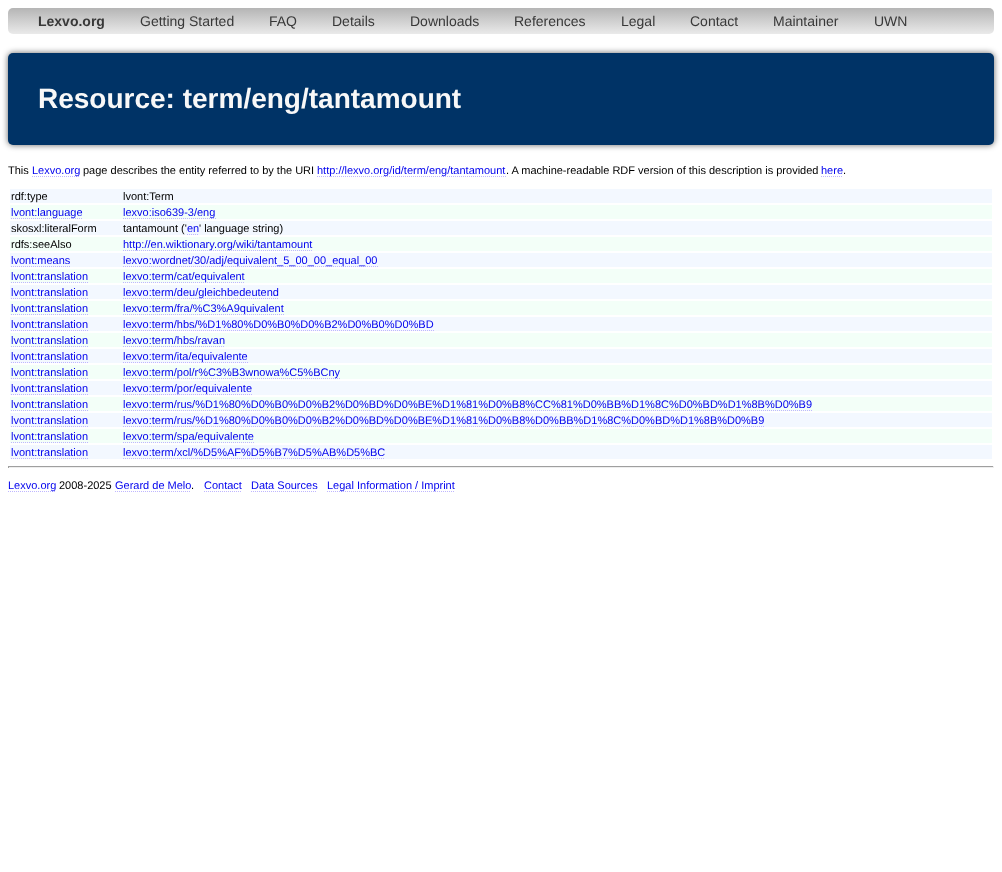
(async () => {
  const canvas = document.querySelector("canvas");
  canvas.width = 1002;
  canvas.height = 872;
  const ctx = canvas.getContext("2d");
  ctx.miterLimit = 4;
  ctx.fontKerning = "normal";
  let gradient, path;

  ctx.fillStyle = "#ffffff";
  ctx.fillRect(0, 0, 1002, 872);
  gradient = ctx.createLinearGradient(501, 8, 501, 34);
  gradient.addColorStop(0, "#b5b5b5");
  gradient.addColorStop(1, "#eaeaea");
  ctx.fillStyle = gradient;
  ctx.beginPath();
  ctx.roundRect(8, 8, 986, 26, 5);
  ctx.fill();
  ctx.fillStyle = "rgba(0, 0, 0, 0.6)";
  ctx.filter = "blur(3px)";
  ctx.beginPath();
  ctx.roundRect(8, 53, 986, 92, 5);
  ctx.fill();
  ctx.filter = "none";
  ctx.fillStyle = "#003366";
  ctx.beginPath();
  ctx.roundRect(8, 53, 986, 92, 5);
  ctx.fill();
  path = new Path2D("M32 176.5H80");
  ctx.strokeStyle = "#bfb6ff";
  ctx.setLineDash([1, 1]);
  ctx.stroke(path);
  path = new Path2D("M317 176.5H506");
  ctx.stroke(path);
  path = new Path2D("M821 176.5H843");
  ctx.stroke(path);
  ctx.fillStyle = "#f3f8ff";
  ctx.fillRect(10, 189, 982, 14);
  ctx.fillStyle = "#f3fff8";
  ctx.fillRect(10, 205, 982, 14);
  path = new Path2D("M11 218.5H83");
  ctx.stroke(path);
  path = new Path2D("M123 218.5H216");
  ctx.stroke(path);
  ctx.fillStyle = "#f3f8ff";
  ctx.fillRect(10, 221, 982, 14);
  path = new Path2D("M187 234.5H199");
  ctx.stroke(path);
  ctx.fillStyle = "#f3fff8";
  ctx.fillRect(10, 237, 982, 14);
  path = new Path2D("M123 250.5H313");
  ctx.stroke(path);
  ctx.fillStyle = "#f3f8ff";
  ctx.fillRect(10, 253, 982, 14);
  path = new Path2D("M11 266.5H70");
  ctx.stroke(path);
  path = new Path2D("M123 266.5H378");
  ctx.stroke(path);
  ctx.fillStyle = "#f3fff8";
  ctx.fillRect(10, 269, 982, 14);
  path = new Path2D("M11 282.5H88");
  ctx.stroke(path);
  path = new Path2D("M123 282.5H245");
  ctx.stroke(path);
  ctx.fillStyle = "#f3f8ff";
  ctx.fillRect(10, 285, 982, 14);
  path = new Path2D("M11 298.5H88");
  ctx.stroke(path);
  path = new Path2D("M123 298.5H279");
  ctx.stroke(path);
  ctx.fillStyle = "#f3fff8";
  ctx.fillRect(10, 301, 982, 14);
  path = new Path2D("M11 314.5H88");
  ctx.stroke(path);
  path = new Path2D("M123 314.5H284");
  ctx.stroke(path);
  ctx.fillStyle = "#f3f8ff";
  ctx.fillRect(10, 317, 982, 14);
  path = new Path2D("M11 330.5H88");
  ctx.stroke(path);
  path = new Path2D("M123 330.5H434");
  ctx.stroke(path);
  ctx.fillStyle = "#f3fff8";
  ctx.fillRect(10, 333, 982, 14);
  path = new Path2D("M11 346.5H88");
  ctx.stroke(path);
  path = new Path2D("M123 346.5H225");
  ctx.stroke(path);
  ctx.fillStyle = "#f3f8ff";
  ctx.fillRect(10, 349, 982, 14);
  path = new Path2D("M11 362.5H88");
  ctx.stroke(path);
  path = new Path2D("M123 362.5H248");
  ctx.stroke(path);
  ctx.fillStyle = "#f3fff8";
  ctx.fillRect(10, 365, 982, 14);
  path = new Path2D("M11 378.5H88");
  ctx.stroke(path);
  path = new Path2D("M123 378.5H340");
  ctx.stroke(path);
  ctx.fillStyle = "#f3f8ff";
  ctx.fillRect(10, 381, 982, 14);
  path = new Path2D("M11 394.5H88");
  ctx.stroke(path);
  path = new Path2D("M123 394.5H252");
  ctx.stroke(path);
  ctx.fillStyle = "#f3fff8";
  ctx.fillRect(10, 397, 982, 14);
  path = new Path2D("M11 410.5H88");
  ctx.stroke(path);
  path = new Path2D("M123 410.5H812");
  ctx.stroke(path);
  ctx.fillStyle = "#f3f8ff";
  ctx.fillRect(10, 413, 982, 14);
  path = new Path2D("M11 426.5H88");
  ctx.stroke(path);
  path = new Path2D("M123 426.5H765");
  ctx.stroke(path);
  ctx.fillStyle = "#f3fff8";
  ctx.fillRect(10, 429, 982, 14);
  path = new Path2D("M11 442.5H88");
  ctx.stroke(path);
  path = new Path2D("M123 442.5H254");
  ctx.stroke(path);
  ctx.fillStyle = "#f3f8ff";
  ctx.fillRect(10, 445, 982, 14);
  path = new Path2D("M11 458.5H88");
  ctx.stroke(path);
  path = new Path2D("M123 458.5H385");
  ctx.stroke(path);
  for (const [x, y, w, h, color] of [
    [8, 466, 986, 1, "#9f9f9f"],
    [993, 466, 1, 2, "#eeeeee"],
    [8, 467, 986, 1, "#eeeeee"],
    [8, 466, 1, 2, "#9f9f9f"],
  ]) {
    ctx.fillStyle = color;
    ctx.fillRect(x, y, w, h);
  }
  path = new Path2D("M8 491.5H56");
  ctx.stroke(path);
  path = new Path2D("M115 491.5H191");
  ctx.stroke(path);
  path = new Path2D("M204 491.5H242");
  ctx.stroke(path);
  path = new Path2D("M251 491.5H317");
  ctx.stroke(path);
  path = new Path2D("M327 491.5H454");
  ctx.stroke(path);
  ctx.font = "bold 14px Liberation Sans";
  ctx.fillStyle = "#383838";
  ctx.fillText("Lexvo.org", 38, 26);
  ctx.font = "14px Liberation Sans";
  for (const [text, x, y] of [
    ["Getting Started", 140, 26],
    ["FAQ", 269, 26],
    ["Details", 332, 26],
    ["Downloads", 410, 26],
    ["References", 514, 26],
    ["Legal", 621, 26],
    ["Contact", 690, 26],
    ["Maintainer", 773, 26],
    ["UWN", 874, 26],
  ]) {
    ctx.fillText(text, x, y);
  }
  ctx.font = "bold 28px Liberation Sans";
  ctx.fillStyle = "#f8f8f8";
  ctx.fillText("Resource: term/eng/tantamount", 38, 108);
  ctx.font = "11px Liberation Sans";
  ctx.fillStyle = "#000000";
  ctx.fillText("This", 8, 174);
  ctx.fillStyle = "#0000ee";
  ctx.fillText("Lexvo.org", 32, 174);
  ctx.fillStyle = "#000000";
  ctx.fillText("page describes the entity referred to by the URI", 83, 174);
  ctx.fillStyle = "#0000ee";
  ctx.fillText("http://lexvo.org/id/term/eng/tantamount", 317, 174);
  ctx.fillStyle = "#000000";
  ctx.fillText(". A machine-readable RDF version of this description is provided", 506, 174);
  ctx.fillStyle = "#0000ee";
  ctx.fillText("here", 821, 174);
  ctx.fillStyle = "#000000";
  for (const [text, x, y] of [
    [".", 843, 174],
    ["rdf:type", 11, 200],
    ["lvont:Term", 123, 200],
  ]) {
    ctx.fillText(text, x, y);
  }
  ctx.fillStyle = "#0000ee";
  ctx.fillText("lvont:language", 11, 216);
  ctx.fillText("lexvo:iso639-3/eng", 123, 216);
  ctx.fillStyle = "#000000";
  ctx.fillText("skosxl:literalForm", 11, 232);
  ctx.fillText("tantamount ('", 123, 232);
  ctx.fillStyle = "#0000ee";
  ctx.fillText("en", 187, 232);
  ctx.fillStyle = "#000000";
  ctx.fillText("' language string)", 199, 232);
  ctx.fillText("rdfs:seeAlso", 11, 248);
  ctx.fillStyle = "#0000ee";
  for (const [text, x, y] of [
    ["http://en.wiktionary.org/wiki/tantamount", 123, 248],
    ["lvont:means", 11, 264],
    ["lexvo:wordnet/30/adj/equivalent_5_00_00_equal_00", 123, 264],
    ["lvont:translation", 11, 280],
    ["lexvo:term/cat/equivalent", 123, 280],
    ["lvont:translation", 11, 296],
    ["lexvo:term/deu/gleichbedeutend", 123, 296],
    ["lvont:translation", 11, 312],
    ["lexvo:term/fra/%C3%A9quivalent", 123, 312],
    ["lvont:translation", 11, 328],
    ["lexvo:term/hbs/%D1%80%D0%B0%D0%B2%D0%B0%D0%BD", 123, 328],
    ["lvont:translation", 11, 344],
    ["lexvo:term/hbs/ravan", 123, 344],
    ["lvont:translation", 11, 360],
    ["lexvo:term/ita/equivalente", 123, 360],
    ["lvont:translation", 11, 376],
    ["lexvo:term/pol/r%C3%B3wnowa%C5%BCny", 123, 376],
    ["lvont:translation", 11, 392],
    ["lexvo:term/por/equivalente", 123, 392],
    ["lvont:translation", 11, 408],
    ["lexvo:term/rus/%D1%80%D0%B0%D0%B2%D0%BD%D0%BE%D1%81%D0%B8%CC%81%D0%BB%D1%8C%D0%BD%D1%8B%D0%B9", 123, 408],
    ["lvont:translation", 11, 424],
    ["lexvo:term/rus/%D1%80%D0%B0%D0%B2%D0%BD%D0%BE%D1%81%D0%B8%D0%BB%D1%8C%D0%BD%D1%8B%D0%B9", 123, 424],
    ["lvont:translation", 11, 440],
    ["lexvo:term/spa/equivalente", 123, 440],
    ["lvont:translation", 11, 456],
    ["lexvo:term/xcl/%D5%AF%D5%B7%D5%AB%D5%BC", 123, 456],
    ["Lexvo.org", 8, 489],
  ]) {
    ctx.fillText(text, x, y);
  }
  ctx.fillStyle = "#000000";
  ctx.fillText("2008-2025", 59, 489);
  ctx.fillStyle = "#0000ee";
  ctx.fillText("Gerard de Melo", 115, 489);
  ctx.fillStyle = "#000000";
  ctx.fillText(".", 191, 489);
  ctx.fillStyle = "#0000ee";
  for (const [text, x, y] of [
    ["Contact", 204, 489],
    ["Data Sources", 251, 489],
    ["Legal Information / Imprint", 327, 489],
  ]) {
    ctx.fillText(text, x, y);
  }
})();
